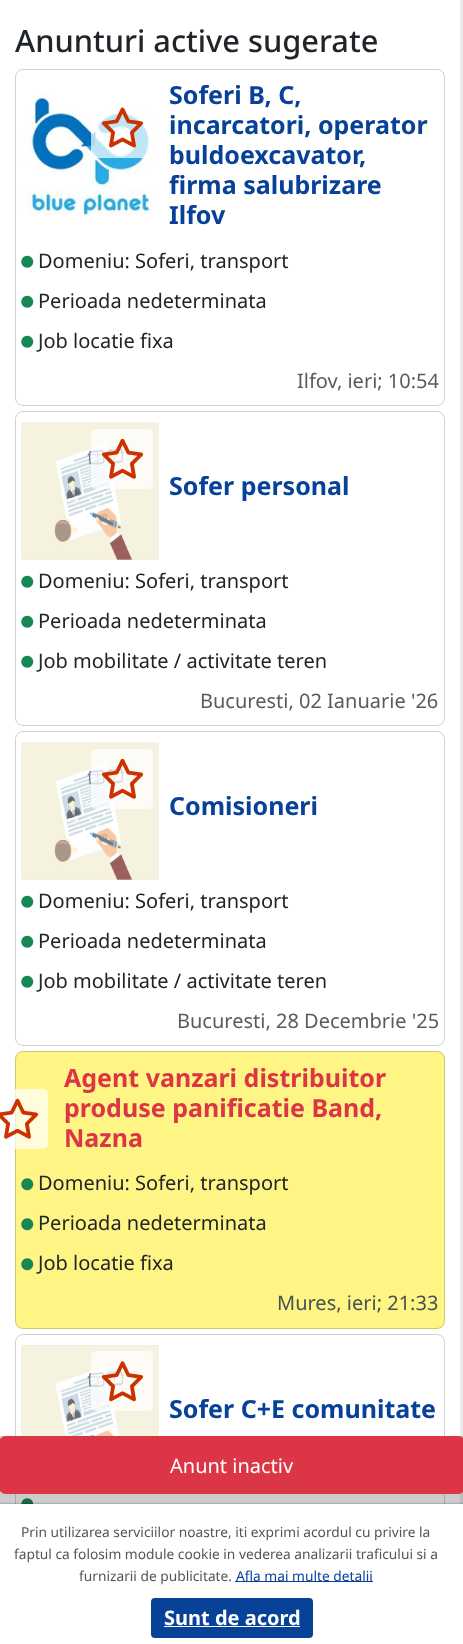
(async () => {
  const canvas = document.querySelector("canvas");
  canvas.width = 463;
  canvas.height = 1644;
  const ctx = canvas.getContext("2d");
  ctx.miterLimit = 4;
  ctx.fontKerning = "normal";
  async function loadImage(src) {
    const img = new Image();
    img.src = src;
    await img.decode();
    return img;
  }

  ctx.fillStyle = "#ffffff";
  ctx.fillRect(0, 0, 463, 1644);
  ctx.fillStyle = "#e9ecef";
  ctx.fillRect(460, 0, 3, 1504);
  ctx.beginPath();
  ctx.roundRect(15.5, 69.5, 429, 336, 7.5);
  ctx.strokeStyle = "#d2d2d2";
  ctx.stroke();
  ctx.drawImage(await loadImage("img/1.png"), 21, 91, 138, 125);
  ctx.fillStyle = "rgba(255, 255, 255, 0.7)";
  ctx.beginPath();
  ctx.roundRect(91, 98, 62, 60, 5);
  ctx.fill();
  ctx.drawImage(await loadImage("img/2.png"), 101, 107, 43, 41);
  ctx.drawImage(await loadImage("img/3.png"), 21, 255, 13, 13);
  ctx.drawImage(await loadImage("img/3.png"), 21, 295, 13, 13);
  ctx.drawImage(await loadImage("img/3.png"), 21, 335, 13, 13);
  ctx.beginPath();
  ctx.roundRect(15.5, 411.5, 429, 314, 7.5);
  ctx.stroke();
  ctx.drawImage(await loadImage("img/4.png"), 21, 422, 138, 138);
  ctx.beginPath();
  ctx.roundRect(91, 429, 62, 60, 5);
  ctx.fill();
  ctx.drawImage(await loadImage("img/5.png"), 101, 438, 43, 41);
  ctx.drawImage(await loadImage("img/3.png"), 21, 575, 13, 13);
  ctx.drawImage(await loadImage("img/3.png"), 21, 615, 13, 13);
  ctx.drawImage(await loadImage("img/3.png"), 21, 655, 13, 13);
  ctx.beginPath();
  ctx.roundRect(15.5, 731.5, 429, 314, 7.5);
  ctx.stroke();
  ctx.drawImage(await loadImage("img/4.png"), 21, 742, 138, 138);
  ctx.beginPath();
  ctx.roundRect(91, 749, 62, 60, 5);
  ctx.fill();
  ctx.drawImage(await loadImage("img/5.png"), 101, 758, 43, 41);
  ctx.drawImage(await loadImage("img/3.png"), 21, 895, 13, 13);
  ctx.drawImage(await loadImage("img/3.png"), 21, 935, 13, 13);
  ctx.drawImage(await loadImage("img/3.png"), 21, 975, 13, 13);
  ctx.fillStyle = "#fff585";
  ctx.beginPath();
  ctx.roundRect(15, 1051, 430, 278, 8);
  ctx.fill();
  ctx.beginPath();
  ctx.roundRect(15.5, 1051.5, 429, 277, 7.5);
  ctx.strokeStyle = "rgba(0, 0, 0, 0.18)";
  ctx.stroke();
  ctx.fillStyle = "rgba(255, 255, 255, 0.7)";
  ctx.beginPath();
  ctx.roundRect(-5, 1089, 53, 60, 5);
  ctx.fill();
  ctx.drawImage(await loadImage("img/6.png"), 0, 1098, 39, 41);
  ctx.drawImage(await loadImage("img/7.png"), 21, 1178, 13, 13);
  ctx.drawImage(await loadImage("img/7.png"), 21, 1218, 13, 13);
  ctx.drawImage(await loadImage("img/7.png"), 21, 1258, 13, 13);
  ctx.beginPath();
  ctx.roundRect(15.5, 1334.5, 429, 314, 7.5);
  ctx.strokeStyle = "#d2d2d2";
  ctx.stroke();
  ctx.drawImage(await loadImage("img/8.png"), 21, 1345, 138, 91);
  ctx.beginPath();
  ctx.roundRect(91, 1351, 62, 60, 5);
  ctx.fill();
  ctx.drawImage(await loadImage("img/9.png"), 101, 1361, 43, 41);
  ctx.drawImage(await loadImage("img/10.png"), 21, 1498, 13, 6);
  ctx.fillStyle = "rgba(0, 0, 0, 0.2)";
  ctx.fillRect(0, 1436, 463, 68);
  ctx.fillStyle = "#dc3545";
  ctx.beginPath();
  ctx.roundRect(-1.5, 1436.5, 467, 57, 7.5);
  ctx.fill();
  ctx.strokeStyle = "#dc3545";
  ctx.stroke();
  ctx.fillStyle = "rgba(0, 0, 0, 0.4)";
  ctx.filter = "blur(1px)";
  ctx.beginPath();
  ctx.rect(0, 1504, 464, 136);
  ctx.fill();
  ctx.filter = "none";
  ctx.fillStyle = "#ffffff";
  ctx.fillRect(0, 1504, 463, 140);
  ctx.fillStyle = "#084298";
  ctx.fillRect(235, 1581, 138, 1);
  ctx.beginPath();
  ctx.roundRect(151, 1598, 162, 40, 4);
  ctx.fill();
  ctx.fillStyle = "#ffffff";
  ctx.fillRect(164, 1626, 136, 1);
  ctx.font = "500 30.75px Noto Sans";
  ctx.fillStyle = "#212529";
  ctx.fillText("Anunturi active sugerate", 15, 52);
  ctx.font = "bold 25px Noto Sans";
  ctx.fillStyle = "#084298";
  for (const [text, x, y] of [
    ["Soferi B, C,", 169, 104],
    ["incarcatori, operator", 169, 134],
    ["buldoexcavator,", 169, 164],
    ["firma salubrizare", 169, 194],
    ["Ilfov", 169, 224],
  ]) {
    ctx.fillText(text, x, y);
  }
  ctx.font = "20px Noto Sans";
  ctx.fillStyle = "#212529";
  for (const [text, x, y] of [
    ["Domeniu: Soferi, transport", 38, 268],
    ["Perioada nedeterminata", 38, 308],
    ["Job locatie fixa", 38, 348],
  ]) {
    ctx.fillText(text, x, y);
  }
  ctx.fillStyle = "#595c5f";
  ctx.fillText("Ilfov, ieri; 10:54", 297, 388);
  ctx.font = "bold 25px Noto Sans";
  ctx.fillStyle = "#084298";
  ctx.fillText("Sofer personal", 169, 495);
  ctx.font = "20px Noto Sans";
  ctx.fillStyle = "#212529";
  for (const [text, x, y] of [
    ["Domeniu: Soferi, transport", 38, 588],
    ["Perioada nedeterminata", 38, 628],
    ["Job mobilitate / activitate teren", 38, 668],
  ]) {
    ctx.fillText(text, x, y);
  }
  ctx.fillStyle = "#595c5f";
  ctx.fillText("Bucuresti, 02 Ianuarie '26", 200, 708);
  ctx.font = "bold 25px Noto Sans";
  ctx.fillStyle = "#084298";
  ctx.fillText("Comisioneri", 169, 815);
  ctx.font = "20px Noto Sans";
  ctx.fillStyle = "#212529";
  for (const [text, x, y] of [
    ["Domeniu: Soferi, transport", 38, 908],
    ["Perioada nedeterminata", 38, 948],
    ["Job mobilitate / activitate teren", 38, 988],
  ]) {
    ctx.fillText(text, x, y);
  }
  ctx.fillStyle = "#595c5f";
  ctx.fillText("Bucuresti, 28 Decembrie '25", 177, 1028);
  ctx.font = "bold 25px Noto Sans";
  ctx.fillStyle = "#dc3545";
  for (const [text, x, y] of [
    ["Agent vanzari distribuitor", 64, 1087],
    ["produse panificatie Band,", 64, 1117],
    ["Nazna", 64, 1147],
  ]) {
    ctx.fillText(text, x, y);
  }
  ctx.font = "20px Noto Sans";
  ctx.fillStyle = "#212529";
  for (const [text, x, y] of [
    ["Domeniu: Soferi, transport", 38, 1190],
    ["Perioada nedeterminata", 38, 1230],
    ["Job locatie fixa", 38, 1270],
  ]) {
    ctx.fillText(text, x, y);
  }
  ctx.fillStyle = "#495057";
  ctx.fillText("Mures, ieri; 21:33", 277, 1310);
  ctx.font = "bold 25px Noto Sans";
  ctx.fillStyle = "#084298";
  ctx.fillText("Sofer C+E comunitate", 169, 1418);
  ctx.font = "20px Noto Sans";
  ctx.fillStyle = "#ffffff";
  ctx.fillText("Anunt inactiv", 170, 1473);
  ctx.font = "13.75px Noto Sans";
  ctx.fillStyle = "#555555";
  for (const [text, x, y] of [
    ["Prin utilizarea serviciilor noastre, iti exprimi acordul cu privire la", 21, 1537],
    ["faptul ca folosim module cookie in vederea analizarii traficului si a", 14, 1559],
    ["furnizarii de publicitate.", 79, 1581],
  ]) {
    ctx.fillText(text, x, y);
  }
  ctx.fillStyle = "#084298";
  ctx.fillText("Afla mai multe detalii", 236, 1581);
  ctx.font = "bold 20px Noto Sans";
  ctx.fillStyle = "#ffffff";
  ctx.fillText("Sunt de acord", 164, 1625);
})();
